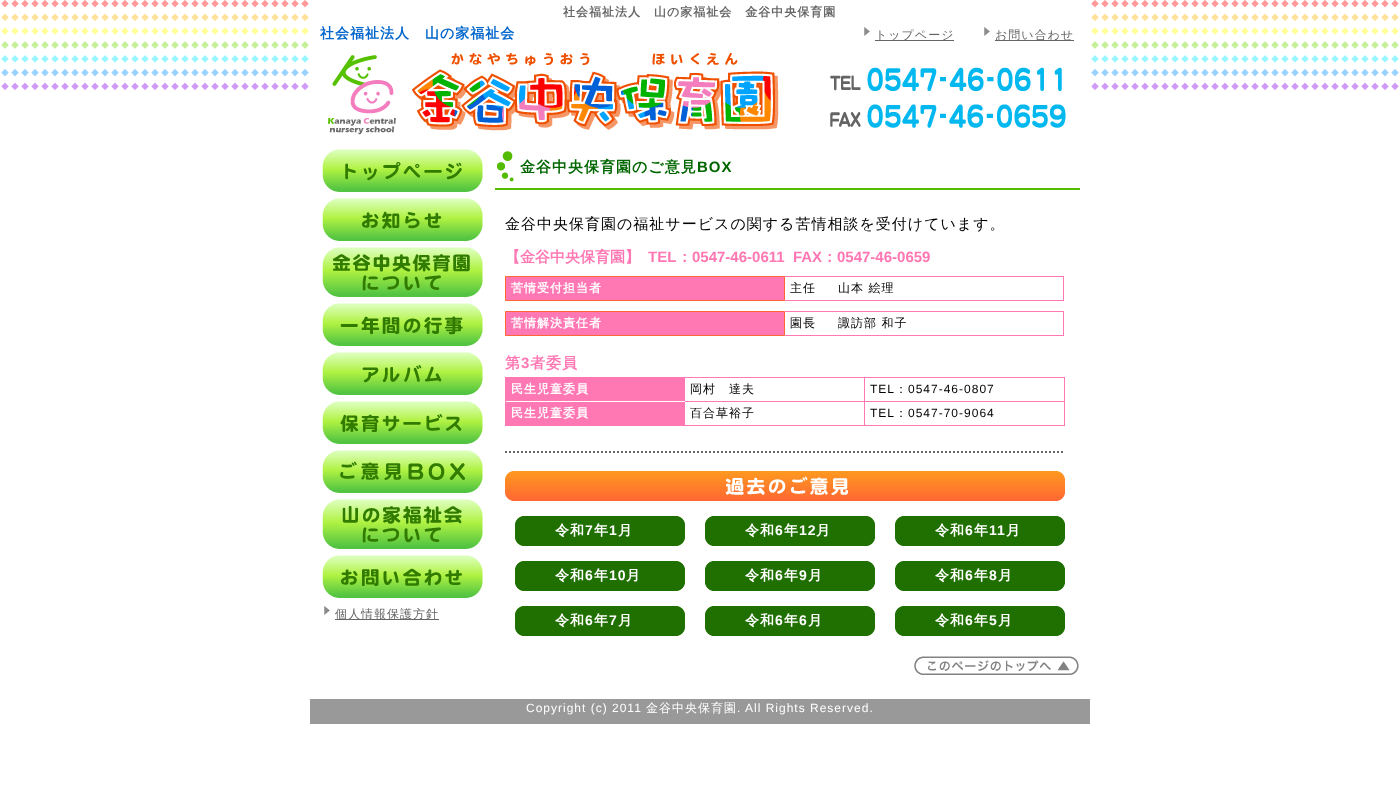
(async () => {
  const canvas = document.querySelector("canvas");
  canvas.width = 1400;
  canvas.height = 802;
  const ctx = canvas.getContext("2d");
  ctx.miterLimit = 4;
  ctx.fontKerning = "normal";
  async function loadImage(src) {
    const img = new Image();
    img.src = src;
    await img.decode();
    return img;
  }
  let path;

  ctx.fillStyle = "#ffffff";
  ctx.fillRect(0, 0, 1400, 802);
  ctx.drawImage(await loadImage("img/1.png"), 1, 0, 1398, 90);
  ctx.fillRect(311, 0, 778, 90);
  ctx.drawImage(await loadImage("img/2.png"), 864, 27, 6, 9);
  ctx.fillStyle = "#666666";
  ctx.fillRect(875, 40, 79, 1);
  ctx.drawImage(await loadImage("img/2.png"), 984, 27, 6, 9);
  ctx.fillRect(995, 40, 79, 1);
  ctx.drawImage(await loadImage("img/3.png"), 328, 53, 738, 82);
  ctx.drawImage(await loadImage("img/4.png"), 322, 149, 161, 43);
  ctx.drawImage(await loadImage("img/5.png"), 322, 198, 161, 43);
  ctx.drawImage(await loadImage("img/6.png"), 322, 247, 161, 50);
  ctx.drawImage(await loadImage("img/7.png"), 322, 303, 161, 43);
  ctx.drawImage(await loadImage("img/8.png"), 322, 352, 161, 43);
  ctx.drawImage(await loadImage("img/9.png"), 322, 401, 161, 43);
  ctx.drawImage(await loadImage("img/10.png"), 322, 450, 161, 43);
  ctx.drawImage(await loadImage("img/11.png"), 322, 499, 161, 50);
  ctx.drawImage(await loadImage("img/12.png"), 322, 555, 161, 43);
  ctx.drawImage(await loadImage("img/2.png"), 324, 606, 6, 9);
  ctx.fillRect(335, 619, 104, 1);
  ctx.drawImage(await loadImage("img/13.png"), 497, 151, 17, 31);
  ctx.fillStyle = "#54bc00";
  ctx.fillRect(495, 188, 585, 2);
  ctx.fillStyle = "#ff77b3";
  ctx.beginPath();
  ctx.rect(505.5, 276.5, 279, 24);
  ctx.fill();
  ctx.strokeStyle = "#ff6633";
  ctx.stroke();
  for (const [x, y, w, h, color] of [
    [785, 276, 279, 1, "#ff77b3"],
    [1063, 276, 1, 25, "#ff77b3"],
    [785, 300, 279, 1, "#ff77b3"],
  ]) {
    ctx.fillStyle = color;
    ctx.fillRect(x, y, w, h);
  }
  ctx.beginPath();
  ctx.rect(505.5, 311.5, 279, 24);
  ctx.fill();
  ctx.stroke();
  for (const [x, y, w, h, color] of [
    [785, 311, 279, 1, "#ff77b3"],
    [1063, 311, 1, 25, "#ff77b3"],
    [785, 335, 279, 1, "#ff77b3"],
    [505, 377, 560, 1, "#ff77b3"],
    [1064, 377, 1, 49, "#ff77b3"],
    [505, 377, 1, 49, "#ff77b3"],
    [506, 378, 179, 23, "#ff77b3"],
    [864, 378, 1, 48, "#ff77b3"],
    [685, 401, 379, 1, "#ff77b3"],
    [506, 402, 179, 24, "#ff77b3"],
    [685, 425, 379, 1, "#ff77b3"],
  ]) {
    ctx.fillStyle = color;
    ctx.fillRect(x, y, w, h);
  }
  path = new Path2D("M505 452H1065");
  ctx.strokeStyle = "#666666";
  ctx.lineWidth = 2;
  ctx.setLineDash([2, 2]);
  ctx.stroke(path);
  ctx.drawImage(await loadImage("img/14.png"), 505, 471, 560, 30);
  ctx.drawImage(await loadImage("img/15.png"), 515, 516, 170, 30);
  ctx.drawImage(await loadImage("img/15.png"), 705, 516, 170, 30);
  ctx.drawImage(await loadImage("img/15.png"), 895, 516, 170, 30);
  ctx.drawImage(await loadImage("img/15.png"), 515, 561, 170, 30);
  ctx.drawImage(await loadImage("img/15.png"), 705, 561, 170, 30);
  ctx.drawImage(await loadImage("img/15.png"), 895, 561, 170, 30);
  ctx.drawImage(await loadImage("img/15.png"), 515, 606, 170, 30);
  ctx.drawImage(await loadImage("img/15.png"), 705, 606, 170, 30);
  ctx.drawImage(await loadImage("img/15.png"), 895, 606, 170, 30);
  ctx.drawImage(await loadImage("img/16.png"), 914, 656, 165, 19);
  ctx.fillStyle = "#999999";
  ctx.fillRect(310, 699, 780, 25);
  ctx.letterSpacing = "1px";
  ctx.font = "bold 12px WenQuanYi Zen Hei";
  ctx.fillStyle = "#666666";
  ctx.fillText("社会福祉法人　山の家福祉会　金谷中央保育園", 563, 16);
  ctx.font = "bold 14px WenQuanYi Zen Hei";
  ctx.fillStyle = "#0066cc";
  ctx.fillText("社会福祉法人　山の家福祉会", 320, 38);
  ctx.font = "500 12px WenQuanYi Zen Hei";
  ctx.fillStyle = "#666666";
  for (const [text, x, y] of [
    ["トップページ", 875, 39],
    ["お問い合わせ", 995, 39],
    ["個人情報保護方針", 335, 618],
  ]) {
    ctx.fillText(text, x, y);
  }
  ctx.font = "bold 15px WenQuanYi Zen Hei";
  ctx.fillStyle = "#006600";
  ctx.fillText("金谷中央保育園のご意見", 520, 172);
  ctx.font = "bold 15px Liberation Sans";
  ctx.fillText("BOX", 697, 172);
  ctx.font = "500 15px WenQuanYi Zen Hei";
  ctx.fillStyle = "#000000";
  ctx.fillText("金谷中央保育園の福祉サービスの関する苦情相談を受付けています。", 505, 229);
  ctx.letterSpacing = "0px";
  ctx.font = "bold 15px WenQuanYi Zen Hei";
  ctx.fillStyle = "#ff77b3";
  ctx.fillText("【金谷中央保育園】", 505, 262);
  ctx.font = "bold 15px Liberation Sans";
  ctx.fillText("TEL", 648, 262);
  ctx.font = "bold 15px WenQuanYi Zen Hei";
  ctx.fillText("：", 677, 262);
  ctx.font = "bold 15px Liberation Sans";
  ctx.fillText("0547-46-0611  FAX", 692, 262);
  ctx.font = "bold 15px WenQuanYi Zen Hei";
  ctx.fillText("：", 822, 262);
  ctx.font = "bold 15px Liberation Sans";
  ctx.fillText("0547-46-0659", 837, 262);
  ctx.letterSpacing = "1px";
  ctx.font = "bold 12px WenQuanYi Zen Hei";
  ctx.fillStyle = "#ffffff";
  ctx.fillText("苦情受付担当者", 511, 292);
  ctx.font = "500 12px WenQuanYi Zen Hei";
  ctx.fillStyle = "#000000";
  ctx.fillText("主任", 790, 292);
  ctx.fillText("山本 絵理", 838, 292);
  ctx.font = "bold 12px WenQuanYi Zen Hei";
  ctx.fillStyle = "#ffffff";
  ctx.fillText("苦情解決責任者", 511, 327);
  ctx.font = "500 12px WenQuanYi Zen Hei";
  ctx.fillStyle = "#000000";
  ctx.fillText("園長", 790, 327);
  ctx.fillText("諏訪部 和子", 838, 327);
  ctx.font = "bold 15px WenQuanYi Zen Hei";
  ctx.fillStyle = "#ff77b3";
  ctx.fillText("第", 505, 368);
  ctx.font = "bold 15px Liberation Sans";
  ctx.fillText("3", 521, 368);
  ctx.font = "bold 15px WenQuanYi Zen Hei";
  ctx.fillText("者委員", 530, 368);
  ctx.font = "bold 12px WenQuanYi Zen Hei";
  ctx.fillStyle = "#ffffff";
  ctx.fillText("民生児童委員", 511, 393);
  ctx.font = "500 12px WenQuanYi Zen Hei";
  ctx.fillStyle = "#000000";
  ctx.fillText("岡村　達夫", 690, 393);
  ctx.font = "12px Liberation Sans";
  ctx.fillText("TEL", 870, 393);
  ctx.font = "500 12px WenQuanYi Zen Hei";
  ctx.fillText("：", 895, 393);
  ctx.font = "12px Liberation Sans";
  ctx.fillText("0547-46-0807", 908, 393);
  ctx.font = "bold 12px WenQuanYi Zen Hei";
  ctx.fillStyle = "#ffffff";
  ctx.fillText("民生児童委員", 511, 417);
  ctx.font = "500 12px WenQuanYi Zen Hei";
  ctx.fillStyle = "#000000";
  ctx.fillText("百合草裕子", 690, 417);
  ctx.font = "12px Liberation Sans";
  ctx.fillText("TEL", 870, 417);
  ctx.font = "500 12px WenQuanYi Zen Hei";
  ctx.fillText("：", 895, 417);
  ctx.font = "12px Liberation Sans";
  ctx.fillText("0547-70-9064", 908, 417);
  ctx.font = "bold 14px WenQuanYi Zen Hei";
  ctx.fillStyle = "#ffffff";
  ctx.fillText("令和", 555, 535);
  ctx.font = "bold 14px Liberation Sans";
  ctx.fillText("7", 585, 535);
  ctx.font = "bold 14px WenQuanYi Zen Hei";
  ctx.fillText("年", 594, 535);
  ctx.font = "bold 14px Liberation Sans";
  ctx.fillText("1", 609, 535);
  ctx.font = "bold 14px WenQuanYi Zen Hei";
  ctx.fillText("月", 618, 535);
  ctx.fillText("令和", 745, 535);
  ctx.font = "bold 14px Liberation Sans";
  ctx.fillText("6", 775, 535);
  ctx.font = "bold 14px WenQuanYi Zen Hei";
  ctx.fillText("年", 784, 535);
  ctx.font = "bold 14px Liberation Sans";
  ctx.fillText("12", 799, 535);
  ctx.font = "bold 14px WenQuanYi Zen Hei";
  ctx.fillText("月", 816, 535);
  ctx.fillText("令和", 935, 535);
  ctx.font = "bold 14px Liberation Sans";
  ctx.fillText("6", 965, 535);
  ctx.font = "bold 14px WenQuanYi Zen Hei";
  ctx.fillText("年", 974, 535);
  ctx.font = "bold 14px Liberation Sans";
  ctx.fillText("11", 989, 535);
  ctx.font = "bold 14px WenQuanYi Zen Hei";
  ctx.fillText("月", 1006, 535);
  ctx.fillText("令和", 555, 580);
  ctx.font = "bold 14px Liberation Sans";
  ctx.fillText("6", 585, 580);
  ctx.font = "bold 14px WenQuanYi Zen Hei";
  ctx.fillText("年", 594, 580);
  ctx.font = "bold 14px Liberation Sans";
  ctx.fillText("10", 609, 580);
  ctx.font = "bold 14px WenQuanYi Zen Hei";
  ctx.fillText("月", 626, 580);
  ctx.fillText("令和", 745, 580);
  ctx.font = "bold 14px Liberation Sans";
  ctx.fillText("6", 775, 580);
  ctx.font = "bold 14px WenQuanYi Zen Hei";
  ctx.fillText("年", 784, 580);
  ctx.font = "bold 14px Liberation Sans";
  ctx.fillText("9", 799, 580);
  ctx.font = "bold 14px WenQuanYi Zen Hei";
  ctx.fillText("月", 808, 580);
  ctx.fillText("令和", 935, 580);
  ctx.font = "bold 14px Liberation Sans";
  ctx.fillText("6", 965, 580);
  ctx.font = "bold 14px WenQuanYi Zen Hei";
  ctx.fillText("年", 974, 580);
  ctx.font = "bold 14px Liberation Sans";
  ctx.fillText("8", 989, 580);
  ctx.font = "bold 14px WenQuanYi Zen Hei";
  ctx.fillText("月", 998, 580);
  ctx.fillText("令和", 555, 625);
  ctx.font = "bold 14px Liberation Sans";
  ctx.fillText("6", 585, 625);
  ctx.font = "bold 14px WenQuanYi Zen Hei";
  ctx.fillText("年", 594, 625);
  ctx.font = "bold 14px Liberation Sans";
  ctx.fillText("7", 609, 625);
  ctx.font = "bold 14px WenQuanYi Zen Hei";
  ctx.fillText("月", 618, 625);
  ctx.fillText("令和", 745, 625);
  ctx.font = "bold 14px Liberation Sans";
  ctx.fillText("6", 775, 625);
  ctx.font = "bold 14px WenQuanYi Zen Hei";
  ctx.fillText("年", 784, 625);
  ctx.font = "bold 14px Liberation Sans";
  ctx.fillText("6", 799, 625);
  ctx.font = "bold 14px WenQuanYi Zen Hei";
  ctx.fillText("月", 808, 625);
  ctx.fillText("令和", 935, 625);
  ctx.font = "bold 14px Liberation Sans";
  ctx.fillText("6", 965, 625);
  ctx.font = "bold 14px WenQuanYi Zen Hei";
  ctx.fillText("年", 974, 625);
  ctx.font = "bold 14px Liberation Sans";
  ctx.fillText("5", 989, 625);
  ctx.font = "bold 14px WenQuanYi Zen Hei";
  ctx.fillText("月", 998, 625);
  ctx.font = "12px Liberation Sans";
  ctx.fillText("Copyright (c) 2011", 526, 712);
  ctx.font = "500 12px WenQuanYi Zen Hei";
  ctx.fillText("金谷中央保育園", 646, 712);
  ctx.font = "12px Liberation Sans";
  ctx.fillText(". All Rights Reserved.", 737, 712);
})();
